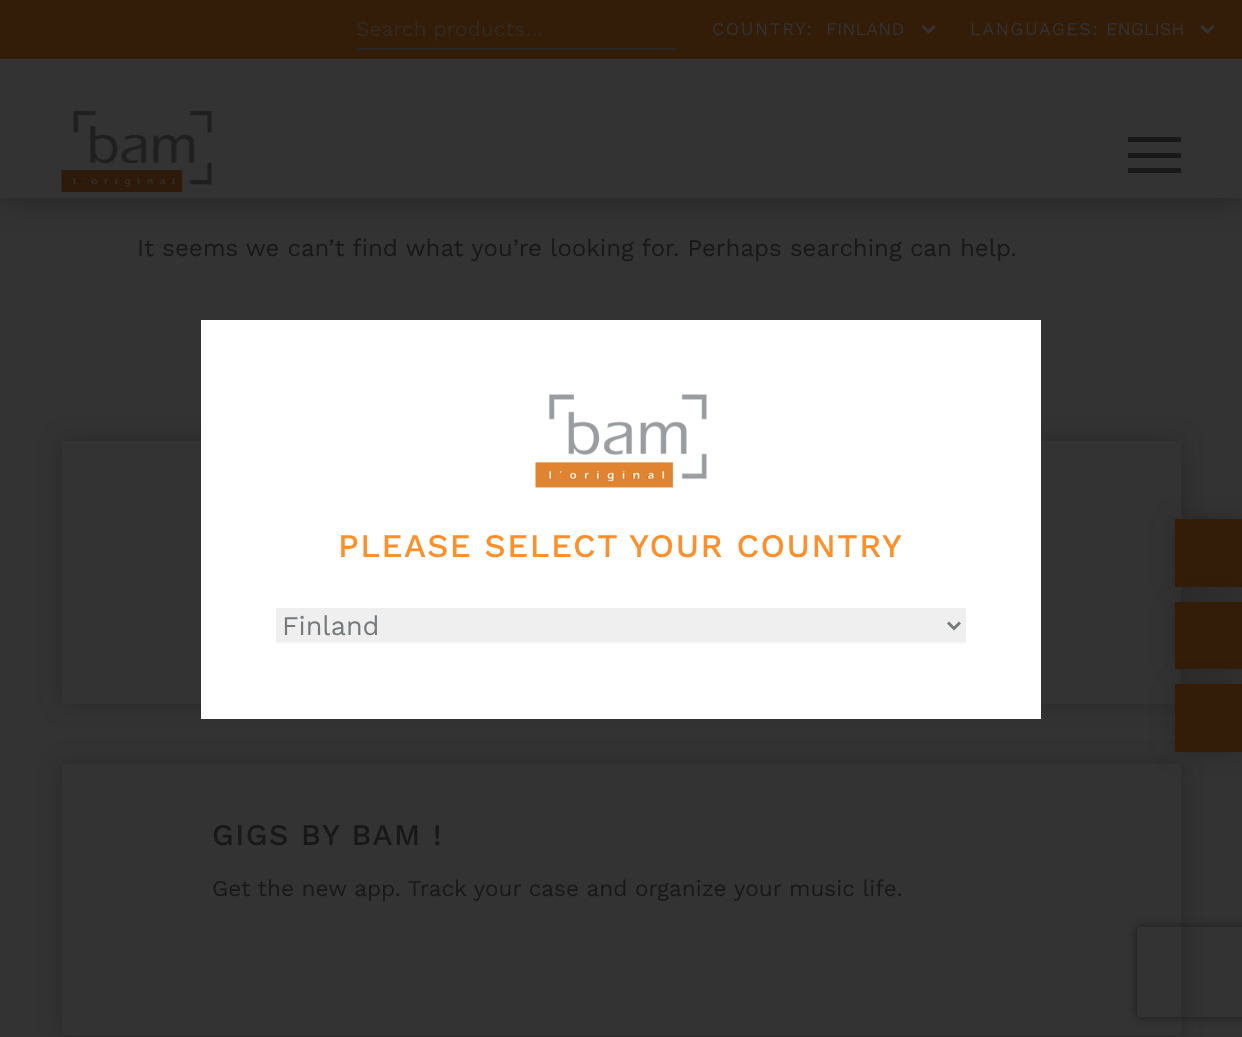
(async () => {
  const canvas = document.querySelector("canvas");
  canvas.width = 1242;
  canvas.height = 1037;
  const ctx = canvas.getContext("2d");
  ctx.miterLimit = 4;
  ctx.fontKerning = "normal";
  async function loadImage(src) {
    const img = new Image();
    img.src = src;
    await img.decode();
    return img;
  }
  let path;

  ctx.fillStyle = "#333333";
  ctx.fillRect(0, 0, 1242, 1037);
  ctx.fillStyle = "rgba(24, 24, 25, 0.6)";
  ctx.filter = "blur(15px)";
  ctx.beginPath();
  ctx.rect(0, 0, 1242, 198);
  ctx.fill();
  ctx.filter = "none";
  for (const [x, y, w, h, color] of [
    [0, 59, 1242, 139, "#333333"],
    [0, 0, 1242, 59, "#331d08"],
    [356, 48, 321, 2, "#272727"],
  ]) {
    ctx.fillStyle = color;
    ctx.fillRect(x, y, w, h);
  }
  path = new Path2D("M922.5 26L928.5 32L934.5 26");
  ctx.strokeStyle = "#333333";
  ctx.lineWidth = 3;
  ctx.stroke(path);
  path = new Path2D("M1201.5 26L1207.5 32L1213.5 26");
  ctx.stroke(path);
  ctx.drawImage(await loadImage("img/1.png"), 61, 111, 151, 81);
  for (const [x, y, w, h, color] of [
    [1128, 137, 53, 5, "#181819"],
    [1128, 153, 53, 5, "#181819"],
    [1128, 168, 53, 5, "#181819"],
  ]) {
    ctx.fillStyle = color;
    ctx.fillRect(x, y, w, h);
  }
  ctx.fillStyle = "rgba(24, 24, 25, 0.4)";
  ctx.filter = "blur(11px)";
  ctx.beginPath();
  ctx.rect(62, 441, 1119, 263);
  ctx.fill();
  ctx.filter = "none";
  ctx.fillStyle = "#333333";
  ctx.fillRect(62, 441, 1119, 263);
  ctx.fillStyle = "rgba(24, 24, 25, 0.4)";
  ctx.filter = "blur(11px)";
  ctx.beginPath();
  ctx.rect(62, 764, 1119, 271);
  ctx.fill();
  ctx.filter = "none";
  ctx.fillStyle = "#333333";
  ctx.fillRect(62, 764, 1119, 271);
  ctx.fillStyle = "rgba(24, 24, 25, 0.4)";
  ctx.filter = "blur(11px)";
  ctx.beginPath();
  ctx.rect(1175, 519, 67, 68);
  ctx.fill();
  ctx.filter = "none";
  ctx.fillStyle = "#331d08";
  ctx.fillRect(1175, 519, 67, 68);
  ctx.fillStyle = "rgba(24, 24, 25, 0.4)";
  ctx.filter = "blur(11px)";
  ctx.beginPath();
  ctx.rect(1175, 602, 67, 67);
  ctx.fill();
  ctx.filter = "none";
  ctx.fillStyle = "#331d08";
  ctx.fillRect(1175, 602, 67, 67);
  ctx.fillStyle = "rgba(24, 24, 25, 0.4)";
  ctx.filter = "blur(11px)";
  ctx.beginPath();
  ctx.rect(1175, 684, 67, 68);
  ctx.fill();
  ctx.filter = "none";
  ctx.fillStyle = "#331d08";
  ctx.fillRect(1175, 684, 67, 68);
  ctx.fillStyle = "#ffffff";
  ctx.fillRect(201, 320, 840, 399);
  ctx.drawImage(await loadImage("img/2.png"), 535, 394, 172, 94);
  ctx.fillStyle = "#efefef";
  ctx.fillRect(276, 608, 690, 34);
  ctx.fillStyle = "#f9f9f9";
  ctx.fillRect(276, 642, 690, 2);
  path = new Path2D("M948 622.5L954 628.5L960 622.5");
  ctx.strokeStyle = "#767a7c";
  ctx.stroke(path);
  ctx.save();
  path = new Path2D("M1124 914H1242V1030H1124ZM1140 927H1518C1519.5 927 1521 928.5 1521 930V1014C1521 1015.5 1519.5 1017 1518 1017H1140C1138.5 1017 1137 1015.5 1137 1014V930C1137 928.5 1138.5 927 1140 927Z");
  ctx.clip(path, "evenodd");
  ctx.fillStyle = "#1a1a1a";
  ctx.filter = "blur(4px)";
  ctx.beginPath();
  ctx.roundRect(1137, 927, 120, 90, 3);
  ctx.fill();
  ctx.filter = "none";
  ctx.restore();
  ctx.font = "21px Work Sans";
  ctx.fillStyle = "#332a22";
  ctx.fillText("Search products…", 356, 36);
  ctx.letterSpacing = "1.5px";
  ctx.font = "18px Work Sans";
  ctx.fillStyle = "#333333";
  ctx.fillText("COUNTRY:", 712, 35);
  ctx.letterSpacing = "0px";
  ctx.fillText("FINLAND", 826, 35);
  ctx.letterSpacing = "1.5px";
  ctx.fillText("LANGUAGES:", 970, 35);
  ctx.letterSpacing = "0px";
  ctx.fillText("ENGLISH", 1106, 35);
  ctx.font = "24px Work Sans";
  ctx.fillStyle = "#181819";
  ctx.fillText("It seems we can’t find what you’re looking for. Perhaps searching can help.", 137, 256);
  ctx.letterSpacing = "1.5px";
  ctx.font = "500 30px Work Sans";
  ctx.fillText("GIGS BY BAM !", 212, 845);
  ctx.letterSpacing = "0px";
  ctx.font = "22.5px Work Sans";
  ctx.fillText("Get the new app. Track your case and organize your music life.", 212, 896);
  ctx.letterSpacing = "1.5px";
  ctx.font = "500 33px Work Sans";
  ctx.fillStyle = "#ff8f2a";
  ctx.fillText("PLEASE SELECT YOUR COUNTRY", 338, 557);
  ctx.letterSpacing = "0px";
  ctx.font = "27px Work Sans";
  ctx.fillStyle = "#767a7c";
  ctx.fillText("Finland", 282, 635);
})();
